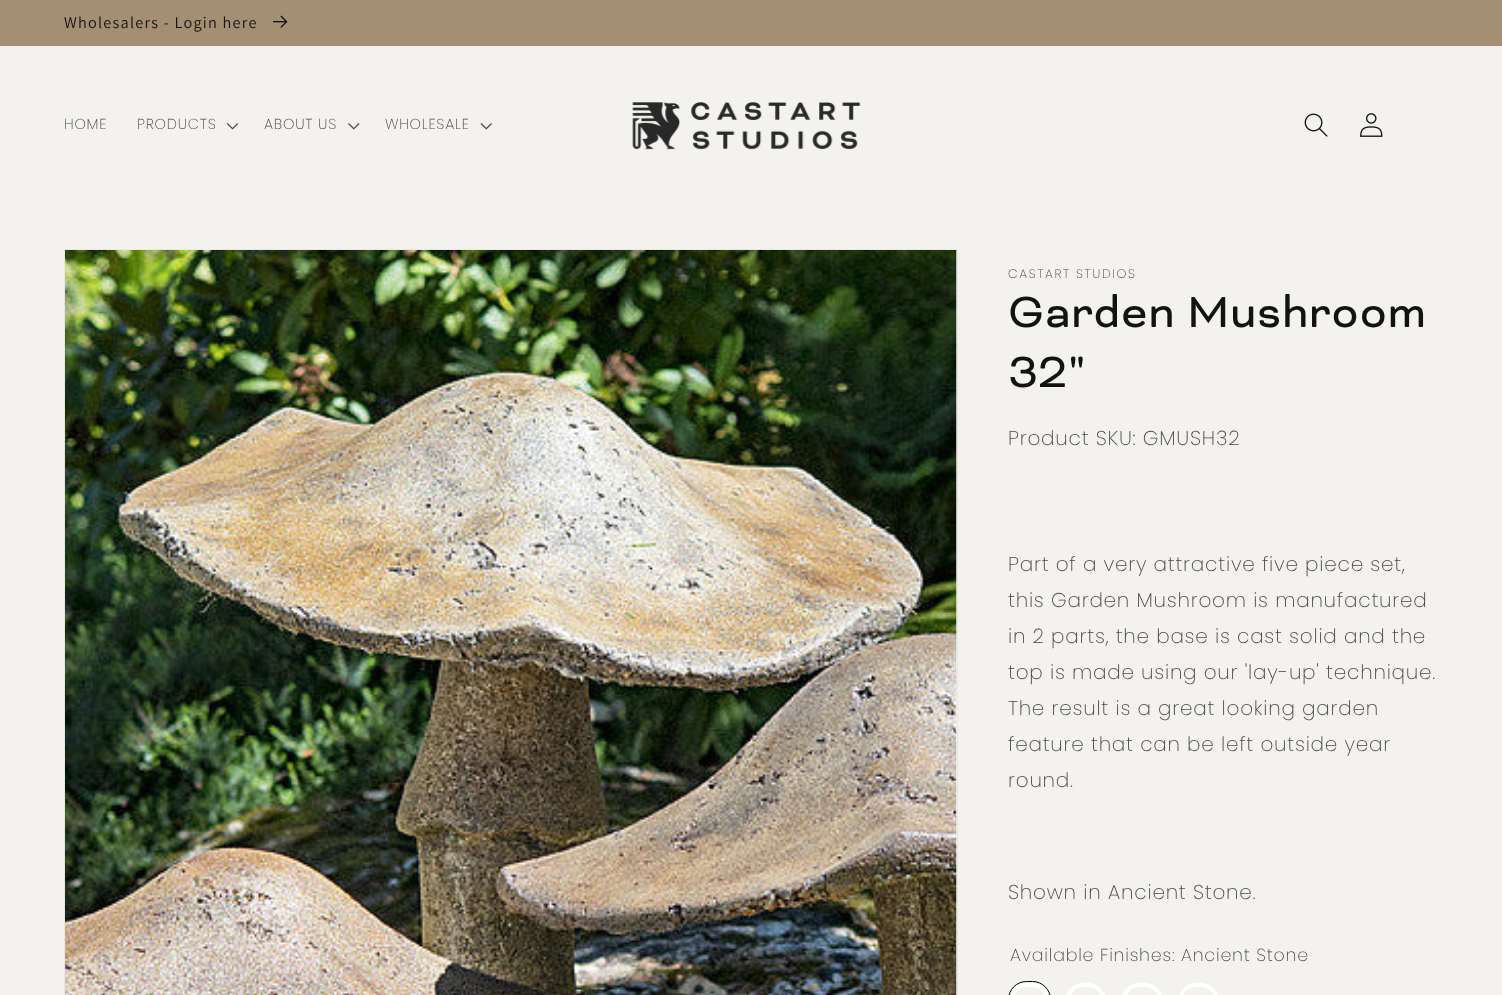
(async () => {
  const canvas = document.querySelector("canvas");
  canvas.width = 1502;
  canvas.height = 995;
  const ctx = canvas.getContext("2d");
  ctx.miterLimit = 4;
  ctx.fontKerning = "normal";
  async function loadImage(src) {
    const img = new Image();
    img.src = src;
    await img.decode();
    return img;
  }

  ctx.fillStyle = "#f3f2ee";
  ctx.fillRect(0, 0, 1502, 995);
  ctx.fillStyle = "#a18c71";
  ctx.fillRect(0, 45, 1502, 1);
  ctx.fillStyle = "#a48f73";
  ctx.fillRect(0, 0, 1502, 45);
  ctx.drawImage(await loadImage("img/1.png"), 273, 15, 15, 13);
  ctx.drawImage(await loadImage("img/2.png"), 226, 123, 13, 7);
  ctx.drawImage(await loadImage("img/3.png"), 348, 123, 12, 7);
  ctx.drawImage(await loadImage("img/4.png"), 480, 123, 12, 7);
  ctx.drawImage(await loadImage("img/5.png"), 632, 102, 229, 48);
  ctx.drawImage(await loadImage("img/6.png"), 1304, 113, 24, 24);
  ctx.drawImage(await loadImage("img/7.png"), 1360, 113, 23, 24);
  ctx.strokeStyle = "#e8e7e3";
  ctx.strokeRect(64.5, 249.5, 893, 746);
  ctx.drawImage(await loadImage("img/8.png"), 65, 250, 892, 745);
  ctx.beginPath();
  ctx.roundRect(1008.5, 981.5, 42, 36, 21);
  ctx.strokeStyle = "#000000";
  ctx.stroke();
  ctx.beginPath();
  ctx.roundRect(1011, 985, 37, 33, 18.5);
  ctx.strokeStyle = "#ffffff";
  ctx.lineWidth = 4;
  ctx.stroke();
  ctx.beginPath();
  ctx.roundRect(1067, 985, 37, 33, 18.5);
  ctx.stroke();
  ctx.beginPath();
  ctx.roundRect(1123, 985, 38, 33, 18.5);
  ctx.stroke();
  ctx.beginPath();
  ctx.roundRect(1180, 985, 37, 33, 18.5);
  ctx.stroke();
  ctx.letterSpacing = "1.25px";
  ctx.font = "16.25px Assistant";
  ctx.fillStyle = "#121212";
  ctx.fillText("Wholesalers - Login here", 64, 28);
  ctx.letterSpacing = "0.75px";
  ctx.font = "300 14.5px Poppins";
  ctx.fillStyle = "#4a4a49";
  for (const [text, x, y] of [
    ["HOME", 64, 129],
    ["PRODUCTS", 137, 129],
    ["ABOUT US", 264, 129],
    ["WHOLESALE", 385, 129],
  ]) {
    ctx.fillText(text, x, y);
  }
  ctx.letterSpacing = "1.6px";
  ctx.font = "300 12.5px Poppins";
  ctx.fillText("CASTART STUDIOS", 1008, 278);
  ctx.letterSpacing = "0.75px";
  ctx.font = "50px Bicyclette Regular";
  ctx.fillStyle = "#121212";
  ctx.fillText("Garden Mushroom", 1008, 327);
  ctx.fillText("32\"", 1008, 387);
  ctx.font = "300 20px Poppins";
  ctx.fillStyle = "#4a4a49";
  for (const [text, x, y] of [
    ["Product SKU: GMUSH32", 1008, 445],
    ["Part of a very attractive five piece set,", 1008, 571],
    ["this Garden Mushroom is manufactured", 1008, 607],
    ["in 2 parts, the base is cast solid and the", 1008, 643],
    ["top is made using our 'lay-up' technique.", 1008, 679],
    ["The result is a great looking garden", 1008, 715],
    ["feature that can be left outside year", 1008, 751],
    ["round.", 1008, 787],
    ["Shown in Ancient Stone.", 1008, 899],
  ]) {
    ctx.fillText(text, x, y);
  }
  ctx.font = "300 17.5px Poppins";
  ctx.fillText("Available Finishes: Ancient Stone", 1010, 961);
})();
